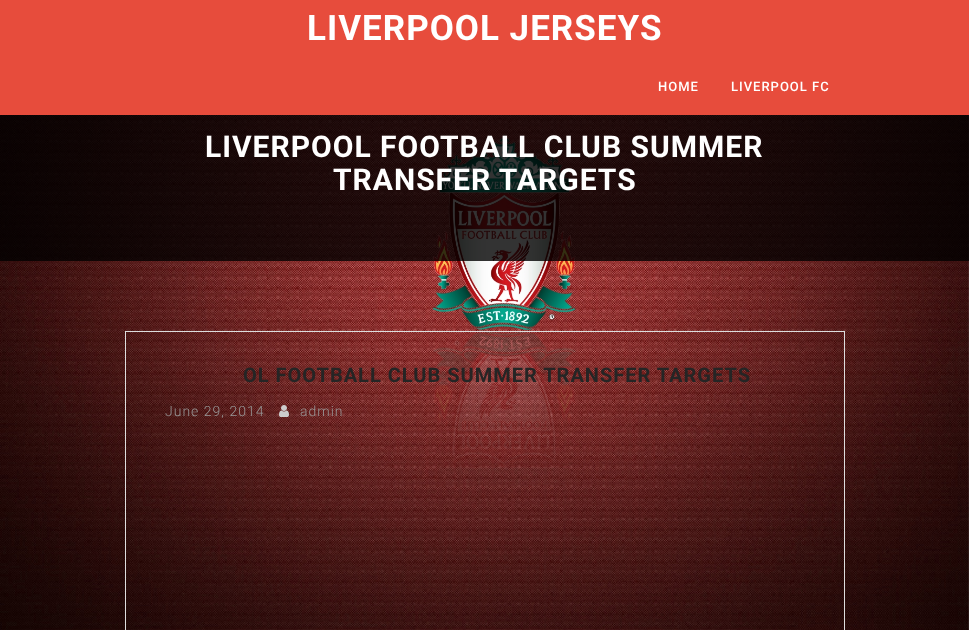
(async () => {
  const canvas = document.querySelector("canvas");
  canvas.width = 969;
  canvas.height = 630;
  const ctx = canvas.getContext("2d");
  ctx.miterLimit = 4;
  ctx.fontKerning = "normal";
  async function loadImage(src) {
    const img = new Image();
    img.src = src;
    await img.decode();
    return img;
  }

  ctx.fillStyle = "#ffffff";
  ctx.fillRect(0, 0, 969, 630);
  ctx.drawImage(await loadImage("img/1.png"), 0, 115, 969, 515);
  ctx.fillStyle = "#e74c3c";
  ctx.fillRect(0, 0, 969, 115);
  ctx.fillStyle = "rgba(0, 0, 0, 0.8)";
  ctx.fillRect(0, 115, 969, 146);
  ctx.strokeStyle = "#dddddd";
  ctx.strokeRect(125.5, 331.5, 719, 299);
  ctx.drawImage(await loadImage("img/2.png"), 279, 405, 10, 12);
  ctx.letterSpacing = "1px";
  ctx.font = "bold 35px Roboto";
  ctx.fillStyle = "#ffffff";
  ctx.fillText("LIVERPOOL JERSEYS", 307, 40);
  ctx.font = "500 13px Roboto";
  ctx.fillText("HOME", 658, 91);
  ctx.fillText("LIVERPOOL FC", 731, 91);
  ctx.font = "bold 30px Roboto";
  ctx.fillText("LIVERPOOL FOOTBALL CLUB SUMMER", 205, 157);
  ctx.fillText("TRANSFER TARGETS", 333, 190);
  ctx.font = "bold 20px Roboto";
  ctx.fillStyle = "#252525";
  ctx.fillText("OL FOOTBALL CLUB SUMMER TRANSFER TARGETS", 243, 382);
  ctx.font = "300 14px Roboto";
  ctx.fillStyle = "#999999";
  ctx.fillText("June 29, 2014", 165, 416);
  ctx.fillText("admin", 300, 416);
})();
